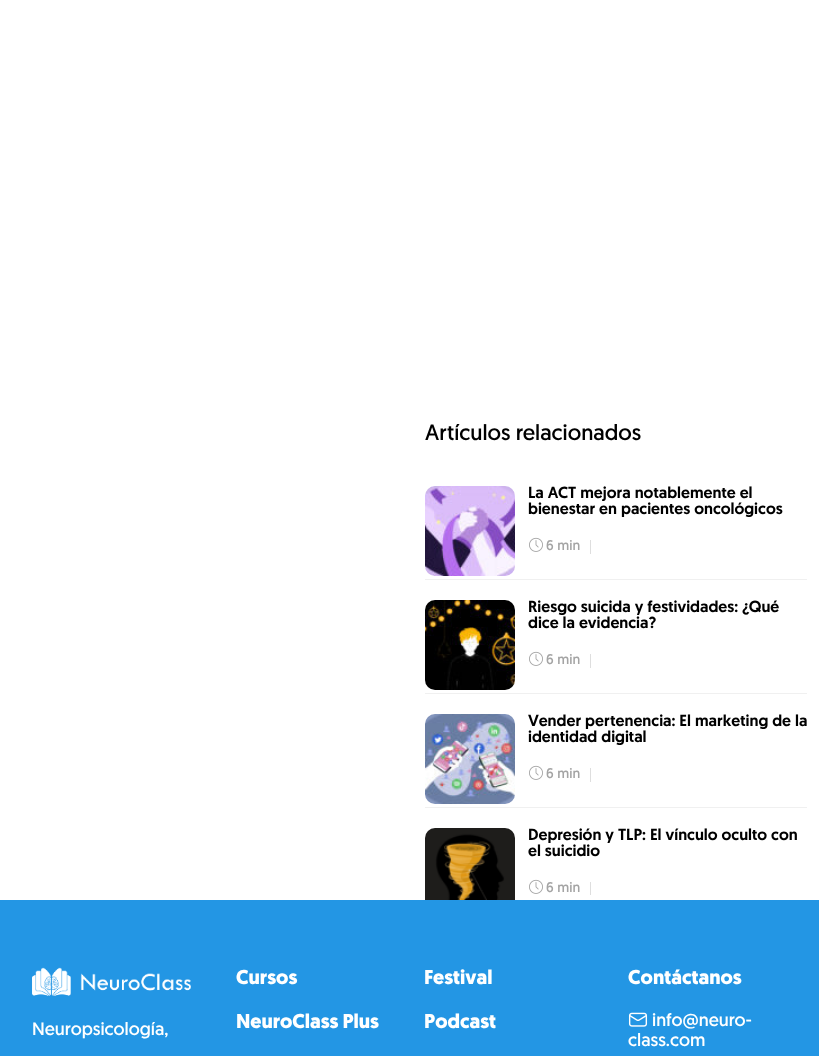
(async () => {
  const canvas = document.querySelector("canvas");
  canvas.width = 819;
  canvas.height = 1056;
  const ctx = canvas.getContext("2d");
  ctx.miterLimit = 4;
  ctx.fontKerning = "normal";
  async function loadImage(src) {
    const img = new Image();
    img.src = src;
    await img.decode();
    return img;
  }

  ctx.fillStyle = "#ffffff";
  ctx.fillRect(0, 0, 819, 1056);
  ctx.fillStyle = "#f0f0f0";
  ctx.fillRect(425, 579, 382, 1);
  ctx.drawImage(await loadImage("img/1.png"), 425, 486, 90, 90);
  ctx.drawImage(await loadImage("img/2.png"), 529, 537, 14, 15);
  ctx.fillStyle = "#dedede";
  ctx.fillRect(590, 540, 1, 14);
  ctx.fillStyle = "#f0f0f0";
  ctx.fillRect(425, 693, 382, 1);
  ctx.drawImage(await loadImage("img/3.png"), 425, 600, 90, 90);
  ctx.drawImage(await loadImage("img/2.png"), 529, 651, 14, 15);
  ctx.fillStyle = "#dedede";
  ctx.fillRect(590, 654, 1, 14);
  ctx.fillStyle = "#f0f0f0";
  ctx.fillRect(425, 807, 382, 1);
  ctx.drawImage(await loadImage("img/4.png"), 425, 714, 90, 90);
  ctx.drawImage(await loadImage("img/2.png"), 529, 765, 14, 15);
  ctx.fillStyle = "#dedede";
  ctx.fillRect(590, 768, 1, 14);
  ctx.drawImage(await loadImage("img/5.png"), 425, 828, 90, 72);
  ctx.drawImage(await loadImage("img/2.png"), 529, 879, 14, 15);
  ctx.fillRect(590, 882, 1, 13);
  ctx.fillStyle = "#2396e4";
  ctx.fillRect(0, 900, 819, 156);
  ctx.drawImage(await loadImage("img/6.png"), 32, 967, 159, 29);
  ctx.drawImage(await loadImage("img/7.png"), 628, 1012, 20, 15);
  ctx.font = "22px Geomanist";
  ctx.fillStyle = "#000000";
  ctx.fillText("Artículos relacionados", 425, 440);
  ctx.font = "500 16px Geomanist";
  ctx.fillText("La ACT mejora notablemente el", 528, 498);
  ctx.fillText("bienestar en pacientes oncológicos", 528, 514);
  ctx.font = "14px Geomanist";
  ctx.fillStyle = "#a4a4a4";
  ctx.fillText("6 min", 546, 550);
  ctx.font = "500 16px Geomanist";
  ctx.fillStyle = "#000000";
  ctx.fillText("Riesgo suicida y festividades: ¿Qué", 528, 612);
  ctx.fillText("dice la evidencia?", 528, 628);
  ctx.font = "14px Geomanist";
  ctx.fillStyle = "#a4a4a4";
  ctx.fillText("6 min", 546, 664);
  ctx.font = "500 16px Geomanist";
  ctx.fillStyle = "#000000";
  ctx.fillText("Vender pertenencia: El marketing de la", 528, 726);
  ctx.fillText("identidad digital", 528, 742);
  ctx.font = "14px Geomanist";
  ctx.fillStyle = "#a4a4a4";
  ctx.fillText("6 min", 546, 778);
  ctx.font = "500 16px Geomanist";
  ctx.fillStyle = "#000000";
  ctx.fillText("Depresión y TLP: El vínculo oculto con", 528, 840);
  ctx.fillText("el suicidio", 528, 856);
  ctx.font = "14px Geomanist";
  ctx.fillStyle = "#a4a4a4";
  ctx.fillText("6 min", 546, 892);
  ctx.font = "18px Geomanist";
  ctx.fillStyle = "#ffffff";
  ctx.fillText("Neuropsicología,", 32, 1035);
  ctx.font = "bold 20px Geomanist";
  for (const [text, x, y] of [
    ["Cursos", 236, 984],
    ["NeuroClass Plus", 236, 1028],
    ["Festival", 424, 984],
    ["Podcast", 424, 1028],
    ["Contáctanos", 628, 984],
  ]) {
    ctx.fillText(text, x, y);
  }
  ctx.font = "18px Geomanist";
  ctx.fillText("info@neuro-", 652, 1026);
  ctx.fillText("class.com", 628, 1046);
})();
